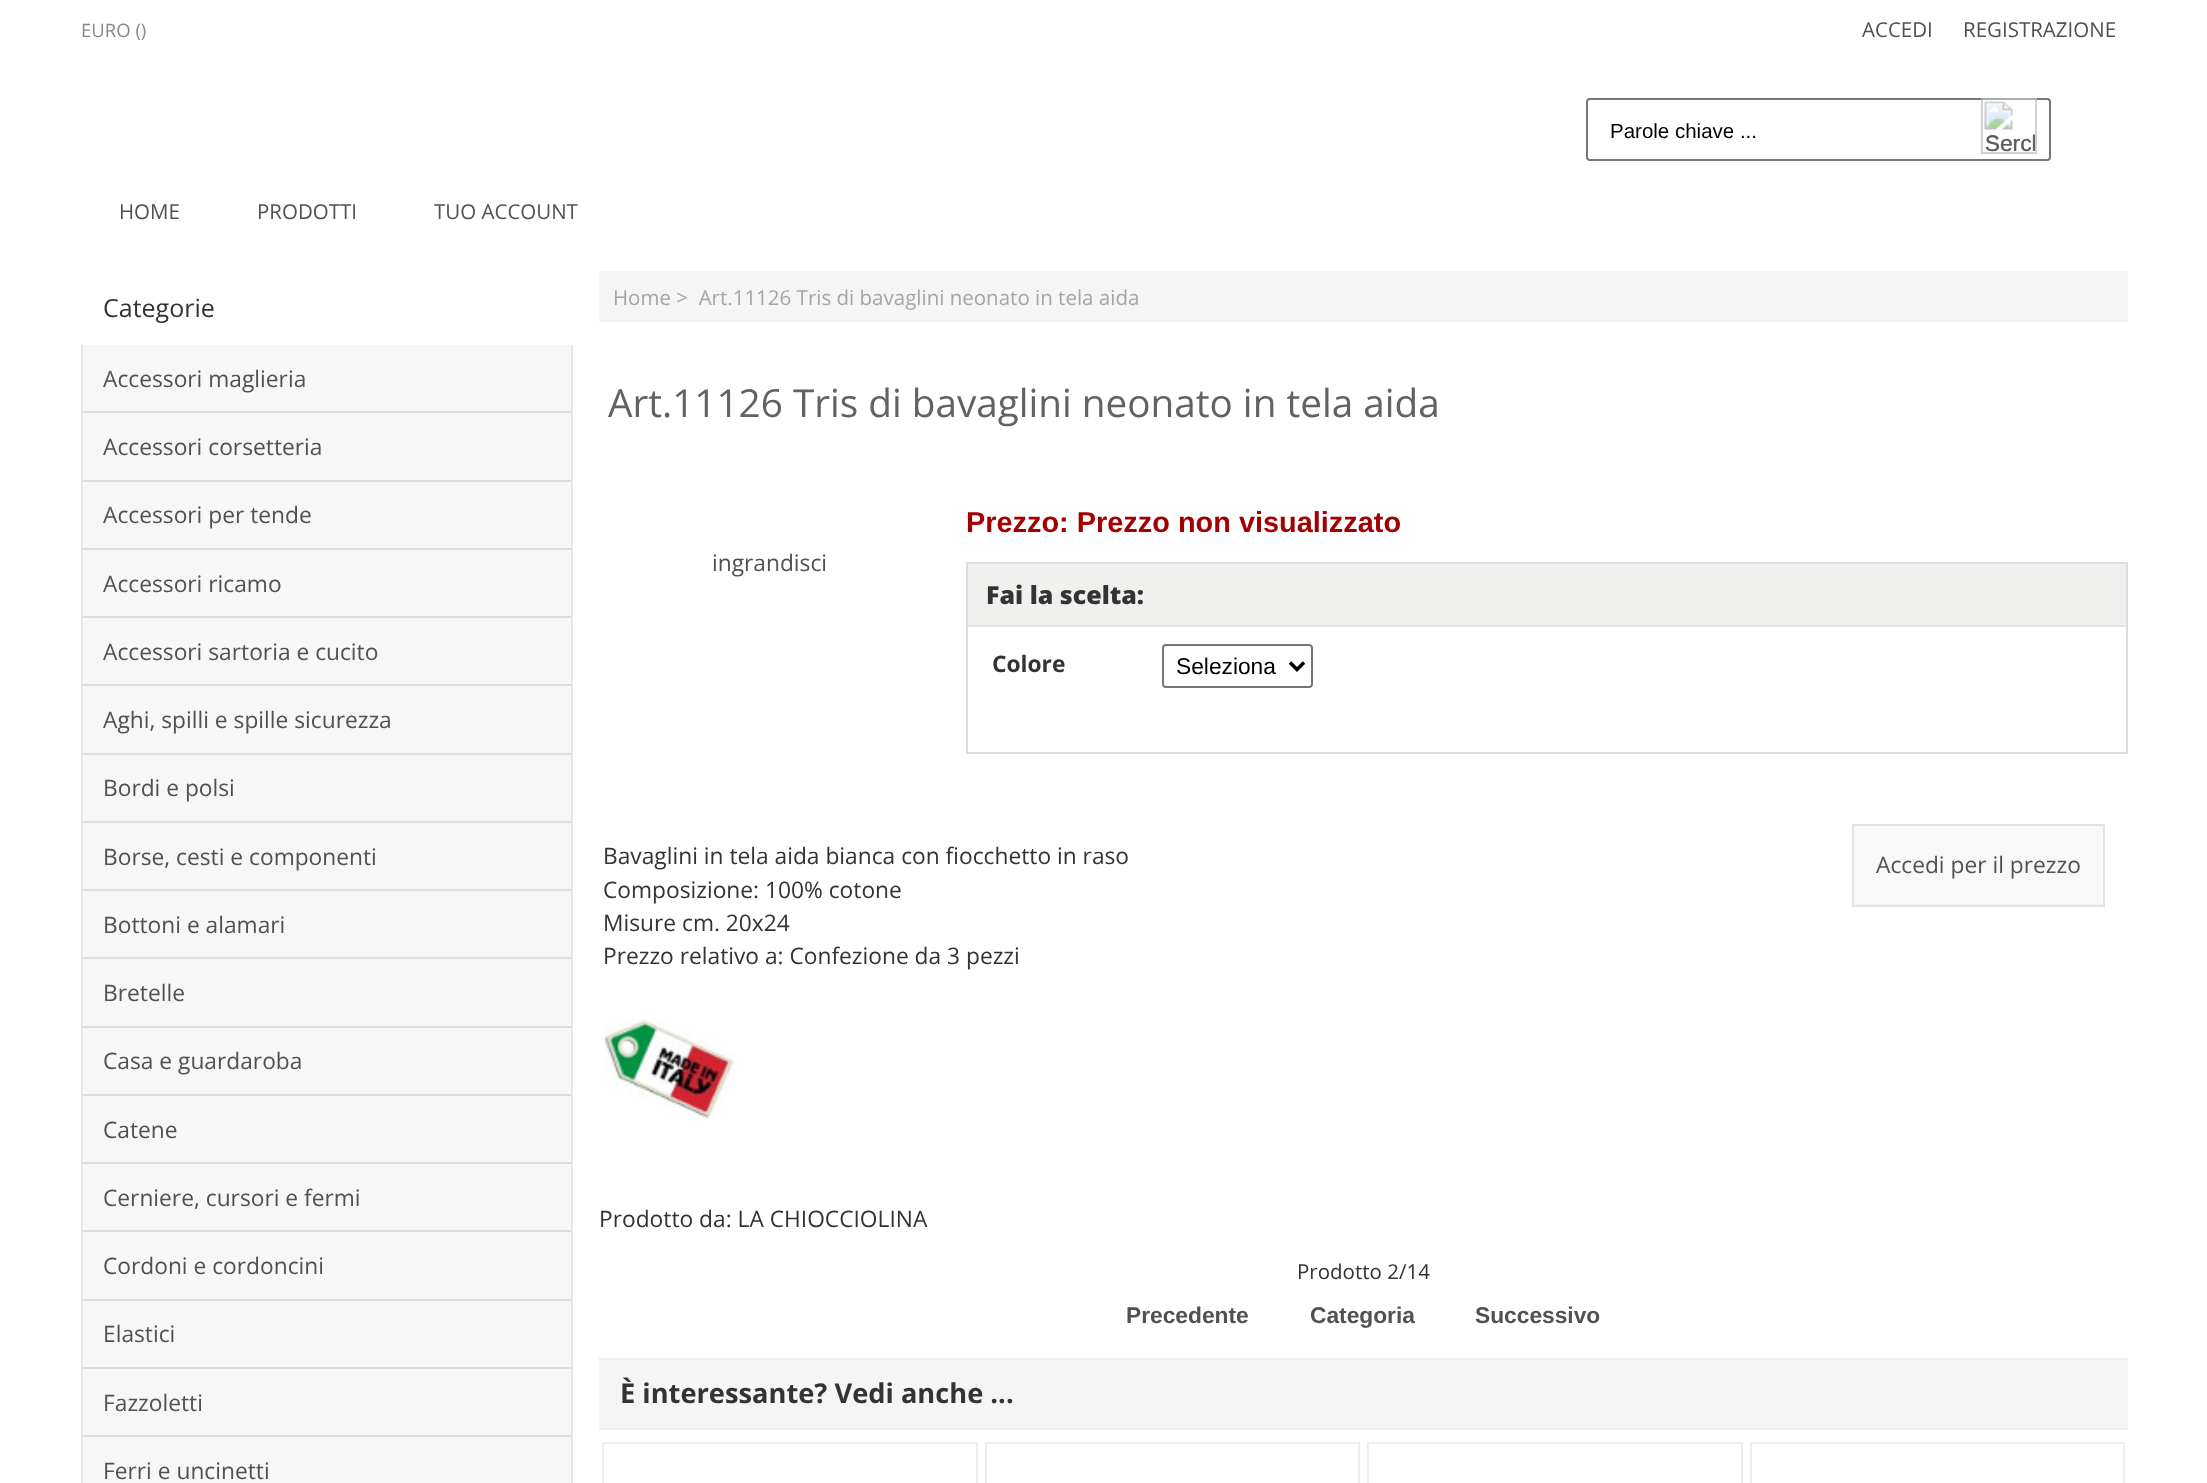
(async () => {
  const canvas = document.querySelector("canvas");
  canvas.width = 2207;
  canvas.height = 1483;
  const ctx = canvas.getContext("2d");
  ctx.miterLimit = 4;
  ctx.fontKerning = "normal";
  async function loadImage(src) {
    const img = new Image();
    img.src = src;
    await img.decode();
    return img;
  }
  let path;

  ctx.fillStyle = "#ffffff";
  ctx.fillRect(0, 0, 2207, 1483);
  ctx.beginPath();
  ctx.roundRect(1587, 99, 463, 61, 3);
  ctx.strokeStyle = "#767676";
  ctx.lineWidth = 2;
  ctx.stroke();
  ctx.drawImage(await loadImage("img/1.png"), 1981, 98, 56, 56);
  ctx.strokeStyle = "rgba(192, 192, 192, 0.5)";
  ctx.strokeRect(1982, 99, 54, 54);
  for (const [x, y, w, h, color] of [
    [83, 345, 488, 1138, "#f7f7f7"],
    [571, 345, 2, 1138, "#e6e6e6"],
    [81, 345, 2, 1138, "#e6e6e6"],
    [82, 411, 489, 2, "#dddddd"],
    [82, 480, 489, 2, "#dddddd"],
    [82, 548, 489, 2, "#dddddd"],
    [82, 616, 489, 2, "#dddddd"],
    [82, 684, 489, 2, "#dddddd"],
    [82, 753, 489, 2, "#dddddd"],
    [82, 821, 489, 2, "#dddddd"],
    [82, 889, 489, 2, "#dddddd"],
    [82, 957, 489, 2, "#dddddd"],
    [82, 1026, 489, 2, "#dddddd"],
    [82, 1094, 489, 2, "#dddddd"],
    [82, 1162, 489, 2, "#dddddd"],
    [82, 1230, 489, 2, "#dddddd"],
    [82, 1299, 489, 2, "#dddddd"],
    [82, 1367, 489, 2, "#dddddd"],
    [82, 1435, 489, 2, "#dddddd"],
    [599, 271, 1529, 51, "#f5f5f5"],
  ]) {
    ctx.fillStyle = color;
    ctx.fillRect(x, y, w, h);
  }
  ctx.strokeStyle = "#dddddd";
  ctx.strokeRect(967, 563, 1160, 190);
  ctx.fillStyle = "#f0f0ee";
  ctx.fillRect(968, 564, 1158, 61);
  ctx.fillStyle = "#e7e7e0";
  ctx.fillRect(968, 625, 1158, 2);
  ctx.beginPath();
  ctx.roundRect(1163, 645, 149, 42, 3);
  ctx.strokeStyle = "#767676";
  ctx.stroke();
  path = new Path2D("M1290 662.5L1297 669.5L1304 662.5");
  ctx.strokeStyle = "#000000";
  ctx.lineWidth = 3.5;
  ctx.stroke(path);
  ctx.fillStyle = "#f8f8f8";
  ctx.beginPath();
  ctx.rect(1853, 825, 251, 81);
  ctx.fill();
  ctx.strokeStyle = "#e2e2e2";
  ctx.lineWidth = 2;
  ctx.stroke();
  ctx.drawImage(await loadImage("img/2.png"), 604, 1018, 131, 102);
  for (const [x, y, w, h, color] of [
    [599, 1360, 1529, 68, "#f5f5f5"],
    [599, 1358, 1529, 2, "#eeeeee"],
    [599, 1428, 1529, 2, "#eeeeee"],
  ]) {
    ctx.fillStyle = color;
    ctx.fillRect(x, y, w, h);
  }
  ctx.strokeStyle = "#eeeeee";
  ctx.strokeRect(603, 1443, 374, 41);
  ctx.strokeRect(986, 1443, 373, 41);
  ctx.strokeRect(1368, 1443, 374, 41);
  ctx.strokeRect(1751, 1443, 373, 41);
  ctx.font = "18.5px Open Sans";
  ctx.fillStyle = "#888888";
  ctx.fillText("EURO ()", 81, 37);
  ctx.font = "20.5px Open Sans";
  ctx.fillStyle = "#525151";
  ctx.fillText("ACCEDI", 1862, 37);
  ctx.fillText("REGISTRAZIONE", 1963, 37);
  ctx.font = "20.5px Liberation Sans";
  ctx.fillStyle = "#000000";
  ctx.fillText("Parole chiave ...", 1610, 138);
  ctx.save();
  ctx.beginPath();
  ctx.rect(1983, 100, 52, 52);
  ctx.clip();
  ctx.font = "22.75px Liberation Sans";
  ctx.fillStyle = "#5c5c5c";
  ctx.fillText("Serch", 1985, 151);
  ctx.restore();
  ctx.font = "20.5px Open Sans";
  ctx.fillStyle = "#525151";
  for (const [text, x, y] of [
    ["HOME", 119, 219],
    ["PRODOTTI", 257, 219],
    ["TUO ACCOUNT", 434, 219],
  ]) {
    ctx.fillText(text, x, y);
  }
  ctx.font = "25px Open Sans";
  ctx.fillStyle = "#333333";
  ctx.fillText("Categorie", 103, 317);
  ctx.font = "22.75px Open Sans";
  ctx.fillStyle = "#525151";
  for (const [text, x, y] of [
    ["Accessori maglieria", 103, 387],
    ["Accessori corsetteria", 103, 455],
    ["Accessori per tende", 103, 523],
    ["Accessori ricamo", 103, 592],
    ["Accessori sartoria e cucito", 103, 660],
    ["Aghi, spilli e spille sicurezza", 103, 728],
    ["Bordi e polsi", 103, 796],
    ["Borse, cesti e componenti", 103, 865],
    ["Bottoni e alamari", 103, 933],
    ["Bretelle", 103, 1001],
    ["Casa e guardaroba", 103, 1069],
    ["Catene", 103, 1138],
    ["Cerniere, cursori e fermi", 103, 1206],
    ["Cordoni e cordoncini", 103, 1274],
    ["Elastici", 103, 1342],
    ["Fazzoletti", 103, 1411],
    ["Ferri e uncinetti", 103, 1479],
  ]) {
    ctx.fillText(text, x, y);
  }
  ctx.font = "20.5px Open Sans";
  ctx.fillStyle = "#a5a5a5";
  ctx.fillText("Home >  Art.11126 Tris di bavaglini neonato in tela aida", 613, 305);
  ctx.font = "38.7px Open Sans";
  ctx.fillStyle = "#626262";
  ctx.fillText("Art.11126 Tris di bavaglini neonato in tela aida", 608, 417);
  ctx.font = "22.75px Open Sans";
  ctx.fillStyle = "#525151";
  ctx.fillText("ingrandisci", 712, 571);
  ctx.font = "bold 28.9px Liberation Sans";
  ctx.fillStyle = "#a30101";
  ctx.fillText("Prezzo: Prezzo non visualizzato", 966, 532);
  ctx.font = "800 25px Open Sans";
  ctx.fillStyle = "#333333";
  ctx.fillText("Fai la scelta:", 986, 604);
  ctx.font = "bold 22.75px Open Sans";
  ctx.fillText("Colore", 992, 672);
  ctx.font = "22.75px Liberation Sans";
  ctx.fillStyle = "#000000";
  ctx.fillText("Seleziona", 1176, 674);
  ctx.font = "22.75px Open Sans";
  ctx.fillStyle = "#525151";
  ctx.fillText("Accedi per il prezzo", 1876, 873);
  ctx.fillStyle = "#333333";
  for (const [text, x, y] of [
    ["Bavaglini in tela aida bianca con fiocchetto in raso", 603, 864],
    ["Composizione: 100% cotone", 603, 898],
    ["Misure cm. 20x24", 603, 931],
    ["Prezzo relativo a: Confezione da 3 pezzi", 603, 964],
    ["Prodotto da: LA CHIOCCIOLINA", 599, 1227],
  ]) {
    ctx.fillText(text, x, y);
  }
  ctx.font = "20.5px Open Sans";
  ctx.fillText("Prodotto 2/14", 1297, 1279);
  ctx.font = "bold 22.75px Liberation Sans";
  ctx.fillStyle = "#525151";
  for (const [text, x, y] of [
    ["Precedente", 1126, 1323],
    ["Categoria", 1310, 1323],
    ["Successivo", 1475, 1323],
  ]) {
    ctx.fillText(text, x, y);
  }
  ctx.font = "bold 27.25px Open Sans";
  ctx.fillStyle = "#333333";
  ctx.fillText("È interessante? Vedi anche ...", 620, 1403);
})();
